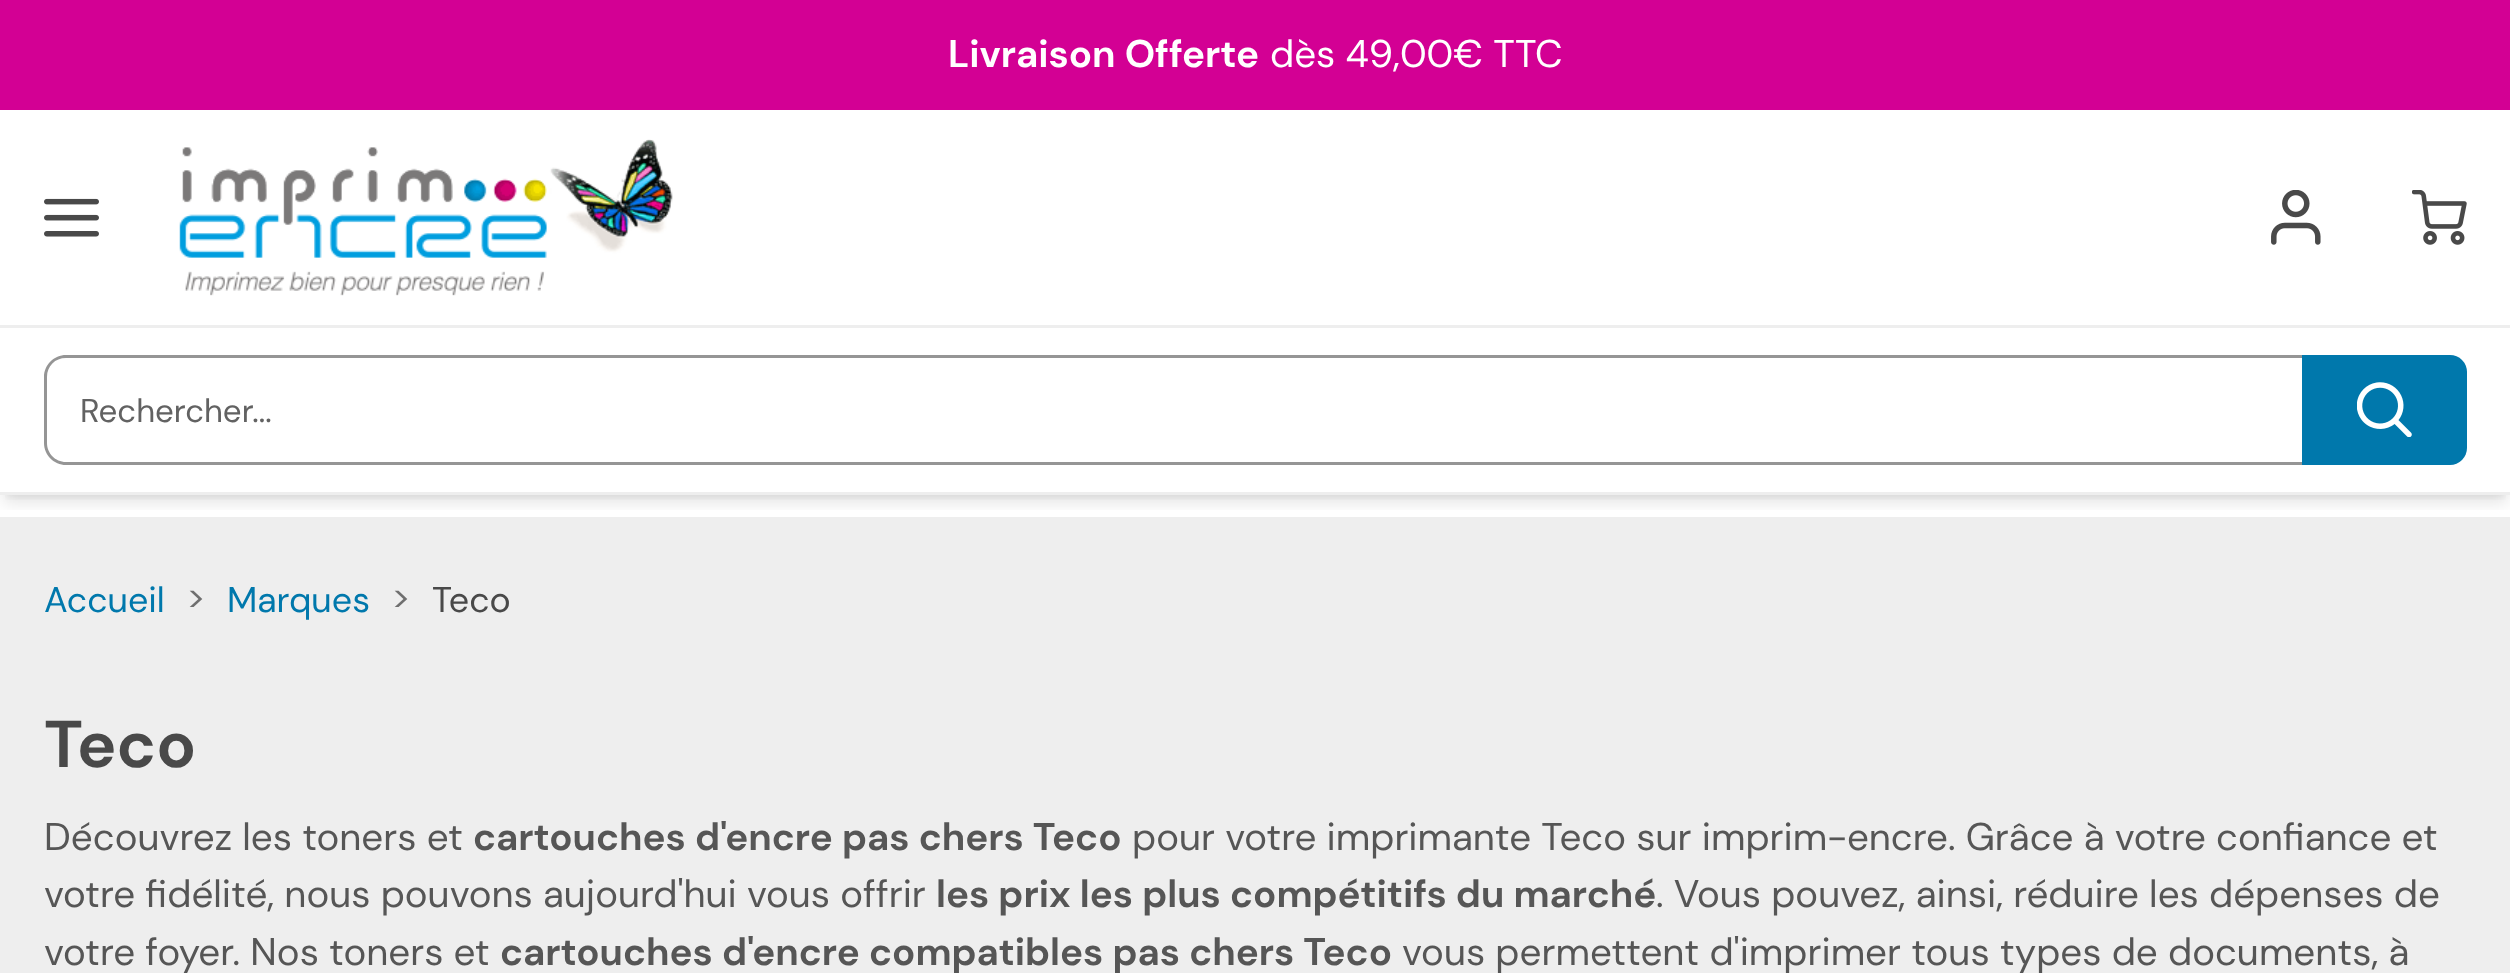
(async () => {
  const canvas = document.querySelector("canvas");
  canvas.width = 2510;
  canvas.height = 973;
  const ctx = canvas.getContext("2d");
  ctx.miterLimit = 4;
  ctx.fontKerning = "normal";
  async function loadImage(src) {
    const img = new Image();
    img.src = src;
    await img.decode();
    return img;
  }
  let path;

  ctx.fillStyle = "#ffffff";
  ctx.fillRect(0, 0, 2510, 973);
  ctx.save();
  ctx.beginPath();
  ctx.rect(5, 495, 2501, 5);
  ctx.clip();
  ctx.fillStyle = "rgba(0, 0, 0, 0.1)";
  ctx.filter = "blur(5.5px)";
  ctx.beginPath();
  ctx.rect(6, 11, 2499, 484);
  ctx.fill();
  ctx.filter = "none";
  ctx.restore();
  ctx.fillStyle = "#eeeeee";
  ctx.fillRect(0, 517, 2510, 456);
  ctx.save();
  ctx.beginPath();
  ctx.rect(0, 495, 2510, 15);
  ctx.clip();
  ctx.fillStyle = "rgba(0, 0, 0, 0.1)";
  ctx.filter = "blur(8px)";
  ctx.beginPath();
  ctx.rect(3, 14, 2505, 489);
  ctx.fill();
  ctx.filter = "none";
  ctx.restore();
  ctx.fillRect(0, 492, 2510, 3);
  ctx.fillStyle = "#d30094";
  ctx.fillRect(0, 0, 2510, 110);
  ctx.drawImage(await loadImage("img/1.png"), 44, 198, 55, 39);
  ctx.drawImage(await loadImage("img/2.png"), 179, 139, 494, 157);
  ctx.drawImage(await loadImage("img/3.png"), 2271, 190, 50, 55);
  ctx.drawImage(await loadImage("img/4.png"), 2412, 190, 55, 55);
  ctx.fillStyle = "#eeeeee";
  ctx.fillRect(0, 325, 2510, 3);
  ctx.fillStyle = "#959595";
  path = new Path2D("M66 355H2302V465H66C54 465 44 455 44 443V377C44 365 54 355 66 355ZM66 358H2302V462H66C55 462 47 453 47 443V377C47 366 55 358 66 358Z");
  ctx.fill(path, "evenodd");
  ctx.fillStyle = "#0078ac";
  ctx.beginPath();
  ctx.roundRect(2302, 355, 165, 110, [0, 17, 17, 0]);
  ctx.fill();
  ctx.drawImage(await loadImage("img/5.png"), 2357, 382, 55, 55);
  ctx.font = "bold 38.5px DM Sans";
  ctx.fillStyle = "#ffffff";
  ctx.fillText("Livraison Offerte", 948, 67);
  ctx.font = "38.5px DM Sans";
  ctx.fillText("dès 49,00€ TTC", 1270, 67);
  ctx.font = "33px DM Sans";
  ctx.fillStyle = "#626262";
  ctx.fillText("Rechercher...", 80, 422);
  ctx.font = "35.75px DM Sans";
  ctx.fillStyle = "#0078ac";
  ctx.fillText("Accueil", 44, 612);
  ctx.fillStyle = "#6f6f6f";
  ctx.fillText(">", 187, 612);
  ctx.fillStyle = "#0078ac";
  ctx.fillText("Marques", 227, 612);
  ctx.fillStyle = "#6f6f6f";
  ctx.fillText(">", 392, 612);
  ctx.fillStyle = "#494949";
  ctx.fillText("Teco", 432, 612);
  ctx.font = "bold 66px DM Sans";
  ctx.fillText("Teco", 44, 767);
  ctx.font = "38.5px DM Sans";
  ctx.fillStyle = "#565656";
  ctx.fillText("Découvrez les toners et", 44, 850);
  ctx.font = "bold 38.5px DM Sans";
  ctx.fillText("cartouches d'encre pas chers Teco", 473, 850);
  ctx.font = "38.5px DM Sans";
  ctx.fillText("pour votre imprimante Teco sur imprim-encre. Grâce à votre confiance et", 1132, 850);
  ctx.fillText("votre fidélité, nous pouvons aujourd'hui vous offrir", 44, 907);
  ctx.font = "bold 38.5px DM Sans";
  ctx.fillText("les prix les plus compétitifs du marché", 936, 907);
  ctx.font = "38.5px DM Sans";
  ctx.fillText(". Vous pouvez, ainsi, réduire les dépenses de", 1656, 907);
  ctx.fillText("votre foyer. Nos toners et", 44, 965);
  ctx.font = "bold 38.5px DM Sans";
  ctx.fillText("cartouches d'encre compatibles pas chers Teco", 500, 965);
  ctx.font = "38.5px DM Sans";
  ctx.fillText("vous permettent d'imprimer tous types de documents, à", 1402, 965);
})();
